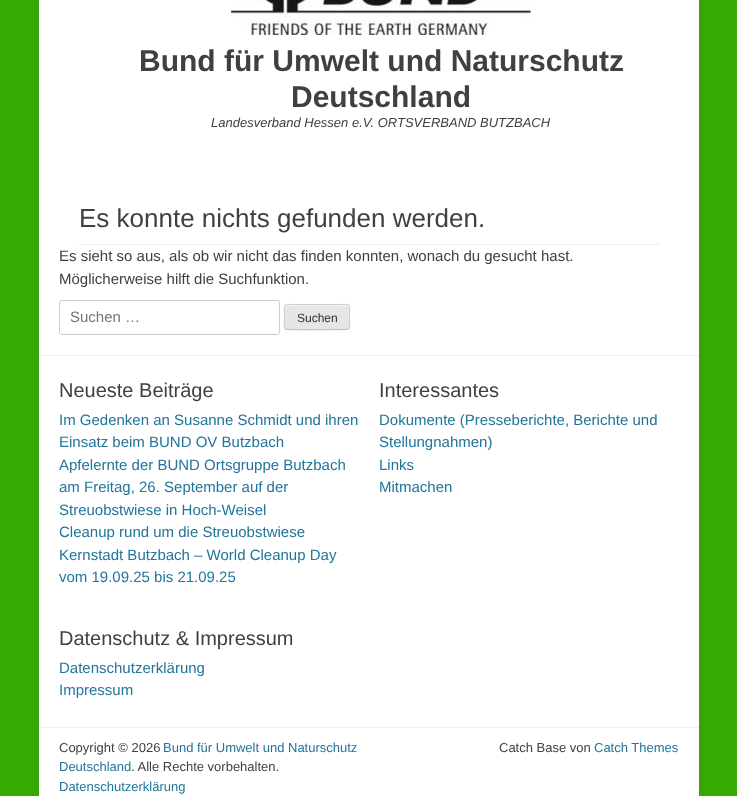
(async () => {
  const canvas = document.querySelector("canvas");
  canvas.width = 737;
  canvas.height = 796;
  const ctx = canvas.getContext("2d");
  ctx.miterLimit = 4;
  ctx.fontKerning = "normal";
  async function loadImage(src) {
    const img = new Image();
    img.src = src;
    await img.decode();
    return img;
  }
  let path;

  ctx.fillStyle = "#36aa00";
  ctx.fillRect(0, 0, 737, 796);
  ctx.fillStyle = "rgba(100, 100, 100, 0.3)";
  ctx.filter = "blur(3px)";
  ctx.beginPath();
  ctx.roundRect(39, -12, 660, 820, 3);
  ctx.fill();
  ctx.filter = "none";
  ctx.fillStyle = "#ffffff";
  ctx.fillRect(39, 0, 660, 796);
  ctx.drawImage(await loadImage("img/1.png"), 231, 0, 300, 35);
  ctx.fillStyle = "#eeeeee";
  ctx.fillRect(79, 244, 580, 1);
  ctx.beginPath();
  ctx.roundRect(59.5, 300.5, 220, 34, 2.5);
  ctx.strokeStyle = "#cccccc";
  ctx.stroke();
  ctx.fillStyle = "#e6e6e6";
  ctx.beginPath();
  ctx.roundRect(284, 304, 66, 26, 3);
  ctx.fill();
  ctx.fillStyle = "#f3f3f3";
  path = new Path2D("M287 306H347L349 307C349 306 348 305 347 305H287C286 305 285 306 285 307V309C285 307 286 306 287 306ZM285 328V325Z");
  ctx.fill(path, "evenodd");
  path = new Path2D("M349 329H348.5C347.5 330 292 330 287 329.5L285 329");
  ctx.strokeStyle = "#bbbbbb";
  ctx.stroke(path);
  path = new Path2D("M285 329C283.5 327 284.5 319.5 284.5 317C284.5 302.5 282 304.5 297 304.5H337C352 304.5 349.5 302.5 349.5 317C349.5 319.5 350.5 327 349 329");
  ctx.strokeStyle = "#cccccc";
  ctx.stroke(path);
  ctx.fillStyle = "#eeeeee";
  ctx.fillRect(39, 355, 660, 1);
  ctx.fillRect(39, 727, 660, 1);
  ctx.font = "bold 30px Liberation Sans";
  ctx.fillStyle = "#404040";
  ctx.fillText("Bund für Umwelt und Naturschutz", 139, 71);
  ctx.fillText("Deutschland", 291, 107);
  ctx.font = "italic 13px Liberation Sans";
  ctx.fillText("Landesverband Hessen e.V. ORTSVERBAND BUTZBACH", 211, 127);
  ctx.font = "26px Liberation Sans";
  ctx.fillText("Es konnte nichts gefunden werden.", 79, 227);
  ctx.font = "15px Liberation Sans";
  ctx.fillText("Es sieht so aus, als ob wir nicht das finden konnten, wonach du gesucht hast.", 59, 261);
  ctx.fillText("Möglicherweise hilft die Suchfunktion.", 59, 284);
  ctx.fillStyle = "#757575";
  ctx.fillText("Suchen …", 70, 322);
  ctx.font = "12px Liberation Sans";
  ctx.fillStyle = "#2e2e2e";
  ctx.fillText("Suchen", 297, 322);
  ctx.font = "20px Liberation Sans";
  ctx.fillStyle = "#404040";
  ctx.fillText("Neueste Beiträge", 59, 397);
  ctx.font = "15px Liberation Sans";
  ctx.fillStyle = "#21759b";
  for (const [text, x, y] of [
    ["Im Gedenken an Susanne Schmidt und ihren", 59, 425],
    ["Einsatz beim BUND OV Butzbach", 59, 447],
    ["Apfelernte der BUND Ortsgruppe Butzbach", 59, 470],
    ["am Freitag, 26. September auf der", 59, 492],
    ["Streuobstwiese in Hoch-Weisel", 59, 515],
    ["Cleanup rund um die Streuobstwiese", 59, 537],
    ["Kernstadt Butzbach – World Cleanup Day", 59, 560],
    ["vom 19.09.25 bis 21.09.25", 59, 582],
  ]) {
    ctx.fillText(text, x, y);
  }
  ctx.font = "20px Liberation Sans";
  ctx.fillStyle = "#404040";
  ctx.fillText("Interessantes", 379, 397);
  ctx.font = "15px Liberation Sans";
  ctx.fillStyle = "#21759b";
  for (const [text, x, y] of [
    ["Dokumente (Presseberichte, Berichte und", 379, 425],
    ["Stellungnahmen)", 379, 447],
    ["Links", 379, 470],
    ["Mitmachen", 379, 492],
  ]) {
    ctx.fillText(text, x, y);
  }
  ctx.font = "20px Liberation Sans";
  ctx.fillStyle = "#404040";
  ctx.fillText("Datenschutz & Impressum", 59, 645);
  ctx.font = "15px Liberation Sans";
  ctx.fillStyle = "#21759b";
  ctx.fillText("Datenschutzerklärung", 59, 673);
  ctx.fillText("Impressum", 59, 695);
  ctx.font = "13px Liberation Sans";
  ctx.fillStyle = "#404040";
  ctx.fillText("Copyright © 2026", 59, 752);
  ctx.fillStyle = "#21759b";
  ctx.fillText("Bund für Umwelt und Naturschutz", 163, 752);
  ctx.fillText("Deutschland", 59, 771);
  ctx.fillStyle = "#404040";
  ctx.fillText(". Alle Rechte vorbehalten.", 131, 771);
  ctx.fillStyle = "#21759b";
  ctx.fillText("Datenschutzerklärung", 59, 791);
  ctx.fillStyle = "#404040";
  ctx.fillText("Catch Base von", 499, 752);
  ctx.fillStyle = "#21759b";
  ctx.fillText("Catch Themes", 594, 752);
})();
